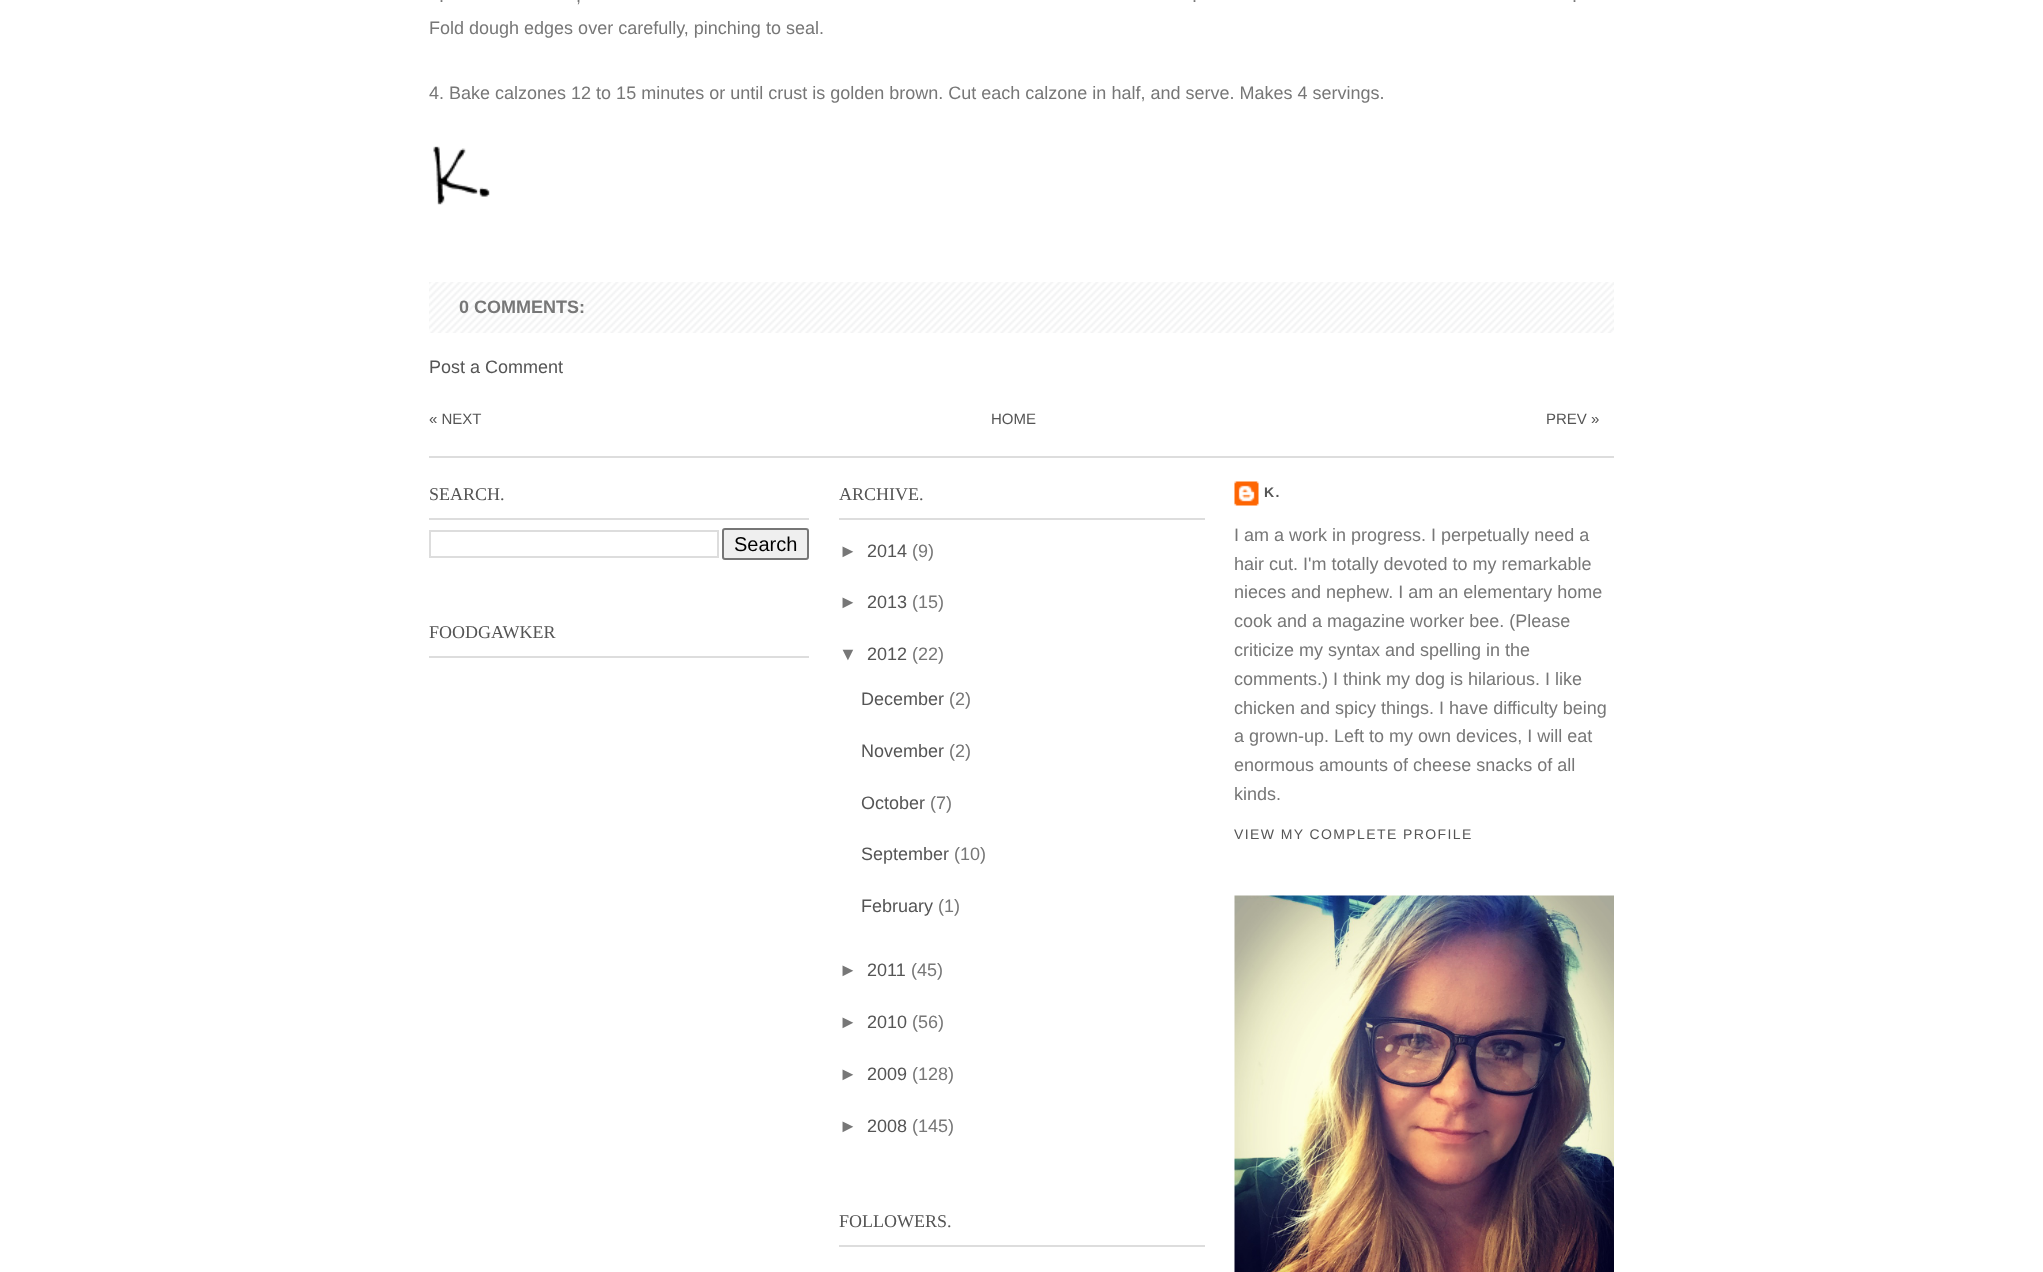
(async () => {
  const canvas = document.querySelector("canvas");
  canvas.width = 2043;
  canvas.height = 1272;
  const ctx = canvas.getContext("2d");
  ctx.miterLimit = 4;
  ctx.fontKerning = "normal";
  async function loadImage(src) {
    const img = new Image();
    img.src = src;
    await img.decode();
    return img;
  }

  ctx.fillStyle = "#ffffff";
  ctx.fillRect(0, 0, 2043, 1272);
  ctx.drawImage(await loadImage("img/1.png"), 433, 146, 57, 59);
  ctx.drawImage(await loadImage("img/2.png"), 429, 282, 1185, 51);
  ctx.fillStyle = "#dddddd";
  ctx.fillRect(429, 456, 1185, 2);
  ctx.fillRect(429, 518, 380, 2);
  ctx.strokeStyle = "#dddddd";
  ctx.lineWidth = 2;
  ctx.strokeRect(430, 531, 288, 26);
  ctx.fillStyle = "#efefef";
  ctx.beginPath();
  ctx.roundRect(723, 529, 85, 30, 2);
  ctx.fill();
  ctx.strokeStyle = "#767676";
  ctx.stroke();
  for (const [x, y, w, h, color] of [
    [429, 656, 380, 2, "#dddddd"],
    [839, 518, 366, 2, "#dddddd"],
    [839, 1245, 366, 2, "#dddddd"],
  ]) {
    ctx.fillStyle = color;
    ctx.fillRect(x, y, w, h);
  }
  ctx.drawImage(await loadImage("img/3.png"), 1234, 481, 25, 25);
  ctx.drawImage(await loadImage("img/4.png"), 1234, 895, 380, 377);
  ctx.font = "18px Liberation Sans";
  ctx.fillStyle = "#777777";
  for (const [text, x, y] of [
    [".", 439, 2],
    [",", 576, 2],
    [".", 1192, 2],
    [".", 1572, 2],
    ["Fold dough edges over carefully, pinching to seal.", 429, 34],
    ["4. Bake calzones 12 to 15 minutes or until crust is golden brown. Cut each calzone in half, and serve. Makes 4 servings.", 429, 99],
  ]) {
    ctx.fillText(text, x, y);
  }
  ctx.font = "bold 18px Liberation Sans";
  ctx.fillText("0 COMMENTS:", 459, 313);
  ctx.font = "18px Liberation Sans";
  ctx.fillStyle = "#555555";
  ctx.fillText("Post a Comment", 429, 373);
  ctx.font = "15px Liberation Sans";
  for (const [text, x, y] of [
    ["« NEXT", 429, 424],
    ["HOME", 991, 424],
    ["PREV »", 1546, 424],
  ]) {
    ctx.fillText(text, x, y);
  }
  ctx.font = "18px Liberation Serif";
  ctx.fillText("SEARCH.", 429, 500);
  ctx.font = "20px Liberation Sans";
  ctx.fillStyle = "#000000";
  ctx.fillText("Search", 734, 551);
  ctx.font = "18px Liberation Serif";
  ctx.fillStyle = "#555555";
  ctx.fillText("FOODGAWKER", 429, 638);
  ctx.fillText("ARCHIVE.", 839, 500);
  ctx.font = "18px Liberation Sans";
  ctx.fillStyle = "#777777";
  ctx.fillText("►", 839, 557);
  ctx.fillStyle = "#555555";
  ctx.fillText("2014", 867, 557);
  ctx.fillStyle = "#777777";
  ctx.fillText("(9)", 912, 557);
  ctx.fillText("►", 839, 608);
  ctx.fillStyle = "#555555";
  ctx.fillText("2013", 867, 608);
  ctx.fillStyle = "#777777";
  ctx.fillText("(15)", 912, 608);
  ctx.fillText("▼", 839, 660);
  ctx.fillStyle = "#555555";
  ctx.fillText("2012", 867, 660);
  ctx.fillStyle = "#777777";
  ctx.fillText("(22)", 912, 660);
  ctx.fillStyle = "#555555";
  ctx.fillText("December", 861, 705);
  ctx.fillStyle = "#777777";
  ctx.fillText("(2)", 949, 705);
  ctx.fillStyle = "#555555";
  ctx.fillText("November", 861, 757);
  ctx.fillStyle = "#777777";
  ctx.fillText("(2)", 949, 757);
  ctx.fillStyle = "#555555";
  ctx.fillText("October", 861, 809);
  ctx.fillStyle = "#777777";
  ctx.fillText("(7)", 930, 809);
  ctx.fillStyle = "#555555";
  ctx.fillText("September", 861, 860);
  ctx.fillStyle = "#777777";
  ctx.fillText("(10)", 954, 860);
  ctx.fillStyle = "#555555";
  ctx.fillText("February", 861, 912);
  ctx.fillStyle = "#777777";
  ctx.fillText("(1)", 938, 912);
  ctx.fillText("►", 839, 976);
  ctx.fillStyle = "#555555";
  ctx.fillText("2011", 867, 976);
  ctx.fillStyle = "#777777";
  ctx.fillText("(45)", 911, 976);
  ctx.fillText("►", 839, 1028);
  ctx.fillStyle = "#555555";
  ctx.fillText("2010", 867, 1028);
  ctx.fillStyle = "#777777";
  ctx.fillText("(56)", 912, 1028);
  ctx.fillText("►", 839, 1080);
  ctx.fillStyle = "#555555";
  ctx.fillText("2009", 867, 1080);
  ctx.fillStyle = "#777777";
  ctx.fillText("(128)", 912, 1080);
  ctx.fillText("►", 839, 1132);
  ctx.fillStyle = "#555555";
  ctx.fillText("2008", 867, 1132);
  ctx.fillStyle = "#777777";
  ctx.fillText("(145)", 912, 1132);
  ctx.font = "18px Liberation Serif";
  ctx.fillStyle = "#555555";
  ctx.fillText("FOLLOWERS.", 839, 1227);
  ctx.letterSpacing = "1.4px";
  ctx.font = "bold 14px Liberation Sans";
  ctx.fillText("K.", 1264, 497);
  ctx.letterSpacing = "0px";
  ctx.font = "18px Liberation Sans";
  ctx.fillStyle = "#777777";
  for (const [text, x, y] of [
    ["I am a work in progress. I perpetually need a", 1234, 541],
    ["hair cut. I'm totally devoted to my remarkable", 1234, 570],
    ["nieces and nephew. I am an elementary home", 1234, 598],
    ["cook and a magazine worker bee. (Please", 1234, 627],
    ["criticize my syntax and spelling in the", 1234, 656],
    ["comments.) I think my dog is hilarious. I like", 1234, 685],
    ["chicken and spicy things. I have difficulty being", 1234, 714],
    ["a grown-up. Left to my own devices, I will eat", 1234, 742],
    ["enormous amounts of cheese snacks of all", 1234, 771],
    ["kinds.", 1234, 800],
  ]) {
    ctx.fillText(text, x, y);
  }
  ctx.letterSpacing = "1.4px";
  ctx.font = "14px Liberation Sans";
  ctx.fillStyle = "#555555";
  ctx.fillText("VIEW MY COMPLETE PROFILE", 1234, 839);
})();
